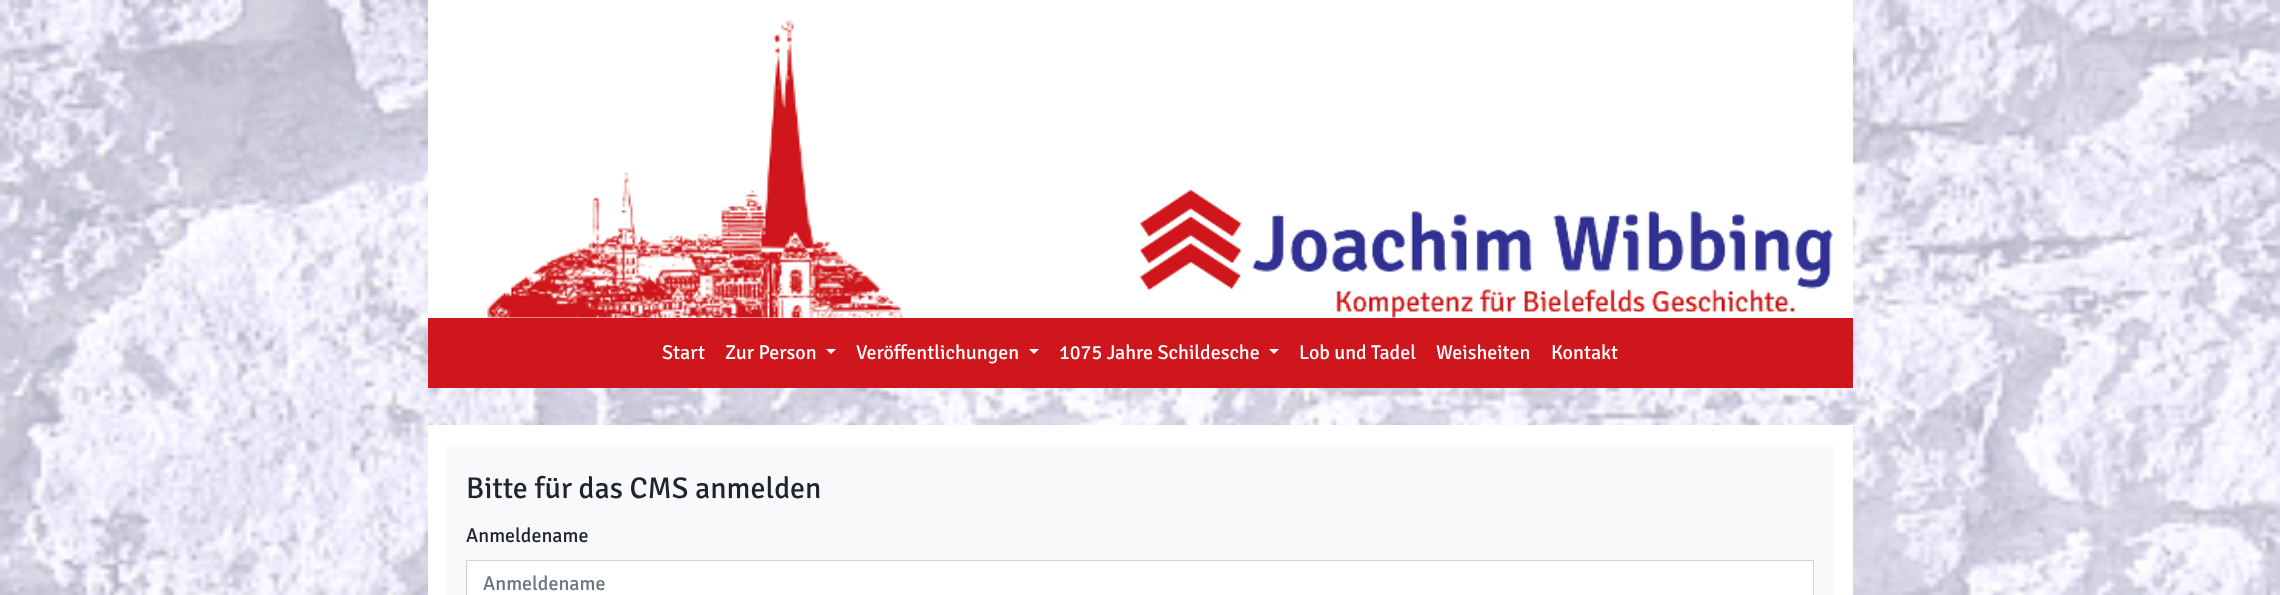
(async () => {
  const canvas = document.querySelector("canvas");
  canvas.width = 2280;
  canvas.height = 595;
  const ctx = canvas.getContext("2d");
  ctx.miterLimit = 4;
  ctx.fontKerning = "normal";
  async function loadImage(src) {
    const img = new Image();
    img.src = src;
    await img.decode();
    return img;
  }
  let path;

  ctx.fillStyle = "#ffffff";
  ctx.fillRect(0, 0, 2280, 595);
  ctx.drawImage(await loadImage("img/1.png"), 0, 0, 2280, 595);
  ctx.fillRect(428, 0, 1425, 318);
  ctx.drawImage(await loadImage("img/2.png"), 487, 20, 416, 298);
  ctx.drawImage(await loadImage("img/3.png"), 1140, 190, 693, 128);
  ctx.fillStyle = "#ce161c";
  ctx.fillRect(428, 318, 1425, 70);
  ctx.fillStyle = "#ffffff";
  path = new Path2D("M826 349H836L831 354Z");
  ctx.fill(path);
  path = new Path2D("M1029 349H1039L1034 354Z");
  ctx.fill(path);
  path = new Path2D("M1269 349H1279L1274 354Z");
  ctx.fill(path);
  for (const [x, y, w, h, color] of [
    [428, 425, 1425, 170, "#ffffff"],
    [446, 445, 1388, 150, "#f8f9fa"],
    [468, 561, 1345, 34, "#ffffff"],
  ]) {
    ctx.fillStyle = color;
    ctx.fillRect(x, y, w, h);
  }
  ctx.strokeStyle = "#ced4da";
  ctx.strokeRect(466.5, 560.5, 1347, 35);
  ctx.font = "20px Signika";
  for (const [text, x, y] of [
    ["Start", 662, 359],
    ["Zur Person", 725, 359],
    ["Veröffentlichungen", 856, 359],
    ["1075 Jahre Schildesche", 1059, 359],
    ["Lob und Tadel", 1299, 359],
    ["Weisheiten", 1436, 359],
    ["Kontakt", 1551, 359],
  ]) {
    ctx.fillText(text, x, y);
  }
  ctx.font = "30px Signika";
  ctx.fillStyle = "#212529";
  ctx.fillText("Bitte für das CMS anmelden", 466, 498);
  ctx.font = "20px Signika";
  ctx.fillText("Anmeldename", 466, 542);
  ctx.fillStyle = "#6c757d";
  ctx.fillText("Anmeldename", 483, 590);
})();
